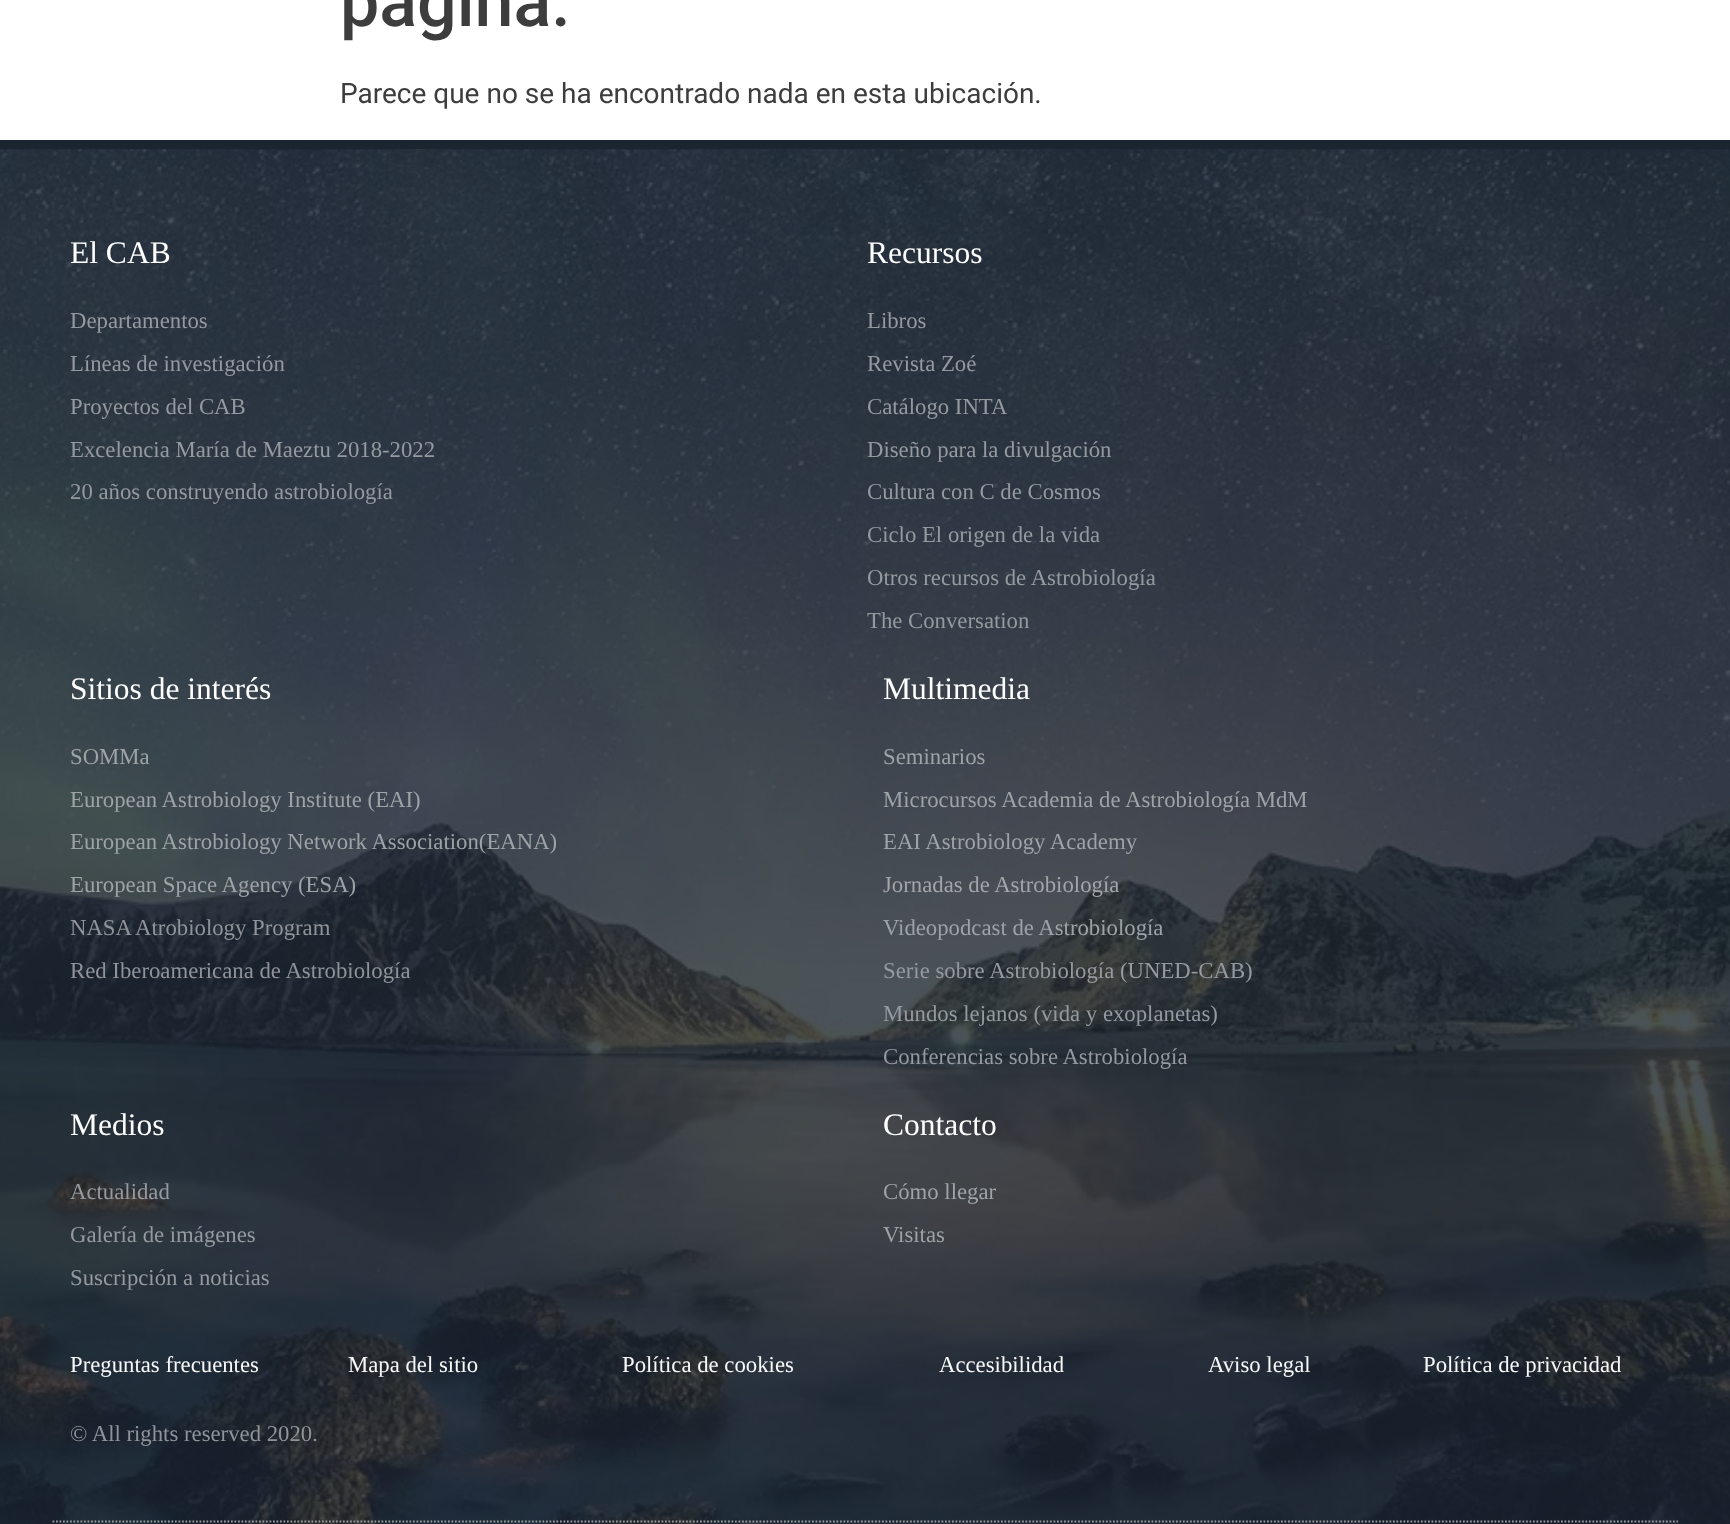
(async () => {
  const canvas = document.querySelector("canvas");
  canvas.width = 1730;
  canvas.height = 1524;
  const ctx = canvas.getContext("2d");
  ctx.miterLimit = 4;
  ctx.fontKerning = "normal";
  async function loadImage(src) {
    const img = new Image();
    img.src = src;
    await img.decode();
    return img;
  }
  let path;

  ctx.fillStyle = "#ffffff";
  ctx.fillRect(0, 0, 1730, 1524);
  ctx.drawImage(await loadImage("img/1.png"), 0, 149, 1730, 1375);
  ctx.fillStyle = "#1b252f";
  ctx.fillRect(0, 140, 1730, 9);
  path = new Path2D("M52.5 1521.5H1678");
  ctx.strokeStyle = "#9b9b9b";
  ctx.lineWidth = 1.8;
  ctx.setLineDash([1.75, 1.75]);
  ctx.stroke(path);
  ctx.font = "500 70px Roboto";
  ctx.fillStyle = "#3d3d3d";
  ctx.fillText("página.", 340, 26);
  ctx.font = "28px Roboto";
  ctx.fillText("Parece que no se ha encontrado nada en esta ubicación.", 340, 103);
  ctx.font = "31.5px Liberation Serif";
  ctx.fillStyle = "#ffffff";
  ctx.fillText("El CAB", 70, 263);
  ctx.font = "22.75px Liberation Serif";
  ctx.fillStyle = "#959aa0";
  for (const [text, x, y] of [
    ["Departamentos", 70, 328],
    ["Líneas de investigación", 70, 371],
    ["Proyectos del CAB", 70, 414],
    ["Excelencia María de Maeztu 2018-2022", 70, 457],
    ["20 años construyendo astrobiología", 70, 499],
  ]) {
    ctx.fillText(text, x, y);
  }
  ctx.font = "31.5px Liberation Serif";
  ctx.fillStyle = "#ffffff";
  ctx.fillText("Recursos", 867, 263);
  ctx.font = "22.75px Liberation Serif";
  ctx.fillStyle = "#959aa0";
  for (const [text, x, y] of [
    ["Libros", 867, 328],
    ["Revista Zoé", 867, 371],
    ["Catálogo INTA", 867, 414],
    ["Diseño para la divulgación", 867, 457],
    ["Cultura con C de Cosmos", 867, 499],
    ["Ciclo El origen de la vida", 867, 542],
    ["Otros recursos de Astrobiología", 867, 585],
    ["The Conversation", 867, 628],
  ]) {
    ctx.fillText(text, x, y);
  }
  ctx.font = "31.5px Liberation Serif";
  ctx.fillStyle = "#ffffff";
  ctx.fillText("Sitios de interés", 70, 699);
  ctx.font = "22.75px Liberation Serif";
  ctx.fillStyle = "#9da3a6";
  for (const [text, x, y] of [
    ["SOMMa", 70, 764],
    ["European Astrobiology Institute (EAI)", 70, 807],
    ["European Astrobiology Network Association(EANA)", 70, 849],
    ["European Space Agency (ESA)", 70, 892],
  ]) {
    ctx.fillText(text, x, y);
  }
  ctx.fillStyle = "#90949a";
  ctx.fillText("NASA Atrobiology Program", 70, 935);
  ctx.fillText("Red Iberoamericana de Astrobiología", 70, 978);
  ctx.font = "31.5px Liberation Serif";
  ctx.fillStyle = "#ffffff";
  ctx.fillText("Multimedia", 883, 699);
  ctx.font = "22.75px Liberation Serif";
  ctx.fillStyle = "#9da3a6";
  for (const [text, x, y] of [
    ["Seminarios", 883, 764],
    ["Microcursos Academia de Astrobiología MdM", 883, 807],
    ["EAI Astrobiology Academy", 883, 849],
  ]) {
    ctx.fillText(text, x, y);
  }
  ctx.fillStyle = "#a3a5a9";
  ctx.fillText("Jornadas de Astrobiología", 883, 892);
  ctx.fillStyle = "#9da3a6";
  ctx.fillText("Videopodcast de Astrobiología", 883, 935);
  ctx.fillStyle = "#959aa0";
  for (const [text, x, y] of [
    ["Serie sobre Astrobiología (UNED-CAB)", 883, 978],
    ["Mundos lejanos (vida y exoplanetas)", 883, 1021],
    ["Conferencias sobre Astrobiología", 883, 1064],
  ]) {
    ctx.fillText(text, x, y);
  }
  ctx.font = "31.5px Liberation Serif";
  ctx.fillStyle = "#ffffff";
  ctx.fillText("Medios", 70, 1135);
  ctx.font = "22.75px Liberation Serif";
  ctx.fillStyle = "#959aa0";
  for (const [text, x, y] of [
    ["Actualidad", 70, 1199],
    ["Galería de imágenes", 70, 1242],
    ["Suscripción a noticias", 70, 1285],
  ]) {
    ctx.fillText(text, x, y);
  }
  ctx.font = "31.5px Liberation Serif";
  ctx.fillStyle = "#ffffff";
  ctx.fillText("Contacto", 883, 1135);
  ctx.font = "22.75px Liberation Serif";
  ctx.fillStyle = "#9da3a6";
  ctx.fillText("Cómo llegar", 883, 1199);
  ctx.fillText("Visitas", 883, 1242);
  ctx.fillStyle = "#f9f9f9";
  for (const [text, x, y] of [
    ["Preguntas frecuentes", 70, 1372],
    ["Mapa del sitio", 348, 1372],
    ["Política de cookies", 622, 1372],
    ["Accesibilidad", 939, 1372],
    ["Aviso legal", 1208, 1372],
    ["Política de privacidad", 1423, 1372],
  ]) {
    ctx.fillText(text, x, y);
  }
  ctx.fillStyle = "#90949a";
  ctx.fillText("© All rights reserved 2020.", 70, 1441);
})();
